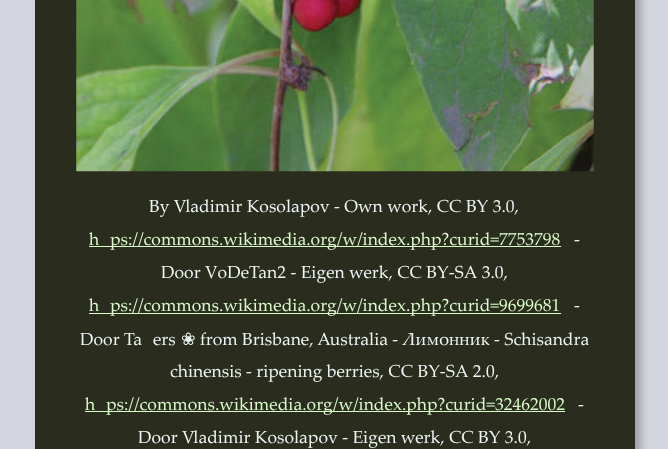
(async () => {
  const canvas = document.querySelector("canvas");
  canvas.width = 668;
  canvas.height = 449;
  const ctx = canvas.getContext("2d");
  ctx.miterLimit = 4;
  ctx.fontKerning = "normal";
  async function loadImage(src) {
    const img = new Image();
    img.src = src;
    await img.decode();
    return img;
  }

  ctx.fillStyle = "#d4d6df";
  ctx.fillRect(0, 0, 668, 449);
  ctx.fillStyle = "rgba(0, 0, 0, 0.25)";
  ctx.filter = "blur(4px)";
  ctx.beginPath();
  ctx.rect(41, -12, 600, 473);
  ctx.fill();
  ctx.filter = "none";
  ctx.fillStyle = "#2a2c1e";
  ctx.fillRect(35, 0, 600, 449);
  ctx.drawImage(await loadImage("img/1.png"), 76, 0, 518, 172);
  for (const [x, y, w, h, color] of [
    [89, 246, 472, 1, "#d9fac9"],
    [89, 313, 472, 1, "#d9fac9"],
    [85, 411, 480, 1, "#d9fac9"],
  ]) {
    ctx.fillStyle = color;
    ctx.fillRect(x, y, w, h);
  }
  ctx.font = "17.5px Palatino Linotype";
  ctx.fillStyle = "#ecf4f3";
  ctx.fillText("By Vladimir Kosolapov - Own work, CC BY 3.0,", 149, 212);
  ctx.fillStyle = "#d9fac9";
  ctx.fillText("https://commons.wikimedia.org/w/index.php?curid=7753798", 89, 245);
  ctx.fillStyle = "#ecf4f3";
  ctx.fillText("-", 574, 245);
  ctx.fillText("Door VoDeTan2 - Eigen werk, CC BY-SA 3.0,", 161, 278);
  ctx.fillStyle = "#d9fac9";
  ctx.fillText("https://commons.wikimedia.org/w/index.php?curid=9699681", 89, 311);
  ctx.fillStyle = "#ecf4f3";
  ctx.fillText("-", 574, 311);
  ctx.fillText("Door Tatters", 80, 345);
  ctx.font = "17.5px DejaVu Sans";
  ctx.fillText("❀", 181, 345);
  ctx.font = "17.5px Palatino Linotype";
  ctx.fillText("from Brisbane, Australia - Лимонник - Schisandra", 200, 345);
  ctx.fillText("chinensis - ripening berries, CC BY-SA 2.0,", 170, 377);
  ctx.fillStyle = "#d9fac9";
  ctx.fillText("https://commons.wikimedia.org/w/index.php?curid=32462002", 85, 410);
  ctx.fillStyle = "#ecf4f3";
  ctx.fillText("-", 578, 410);
  ctx.fillText("Door Vladimir Kosolapov - Eigen werk, CC BY 3.0,", 138, 443);
})();
